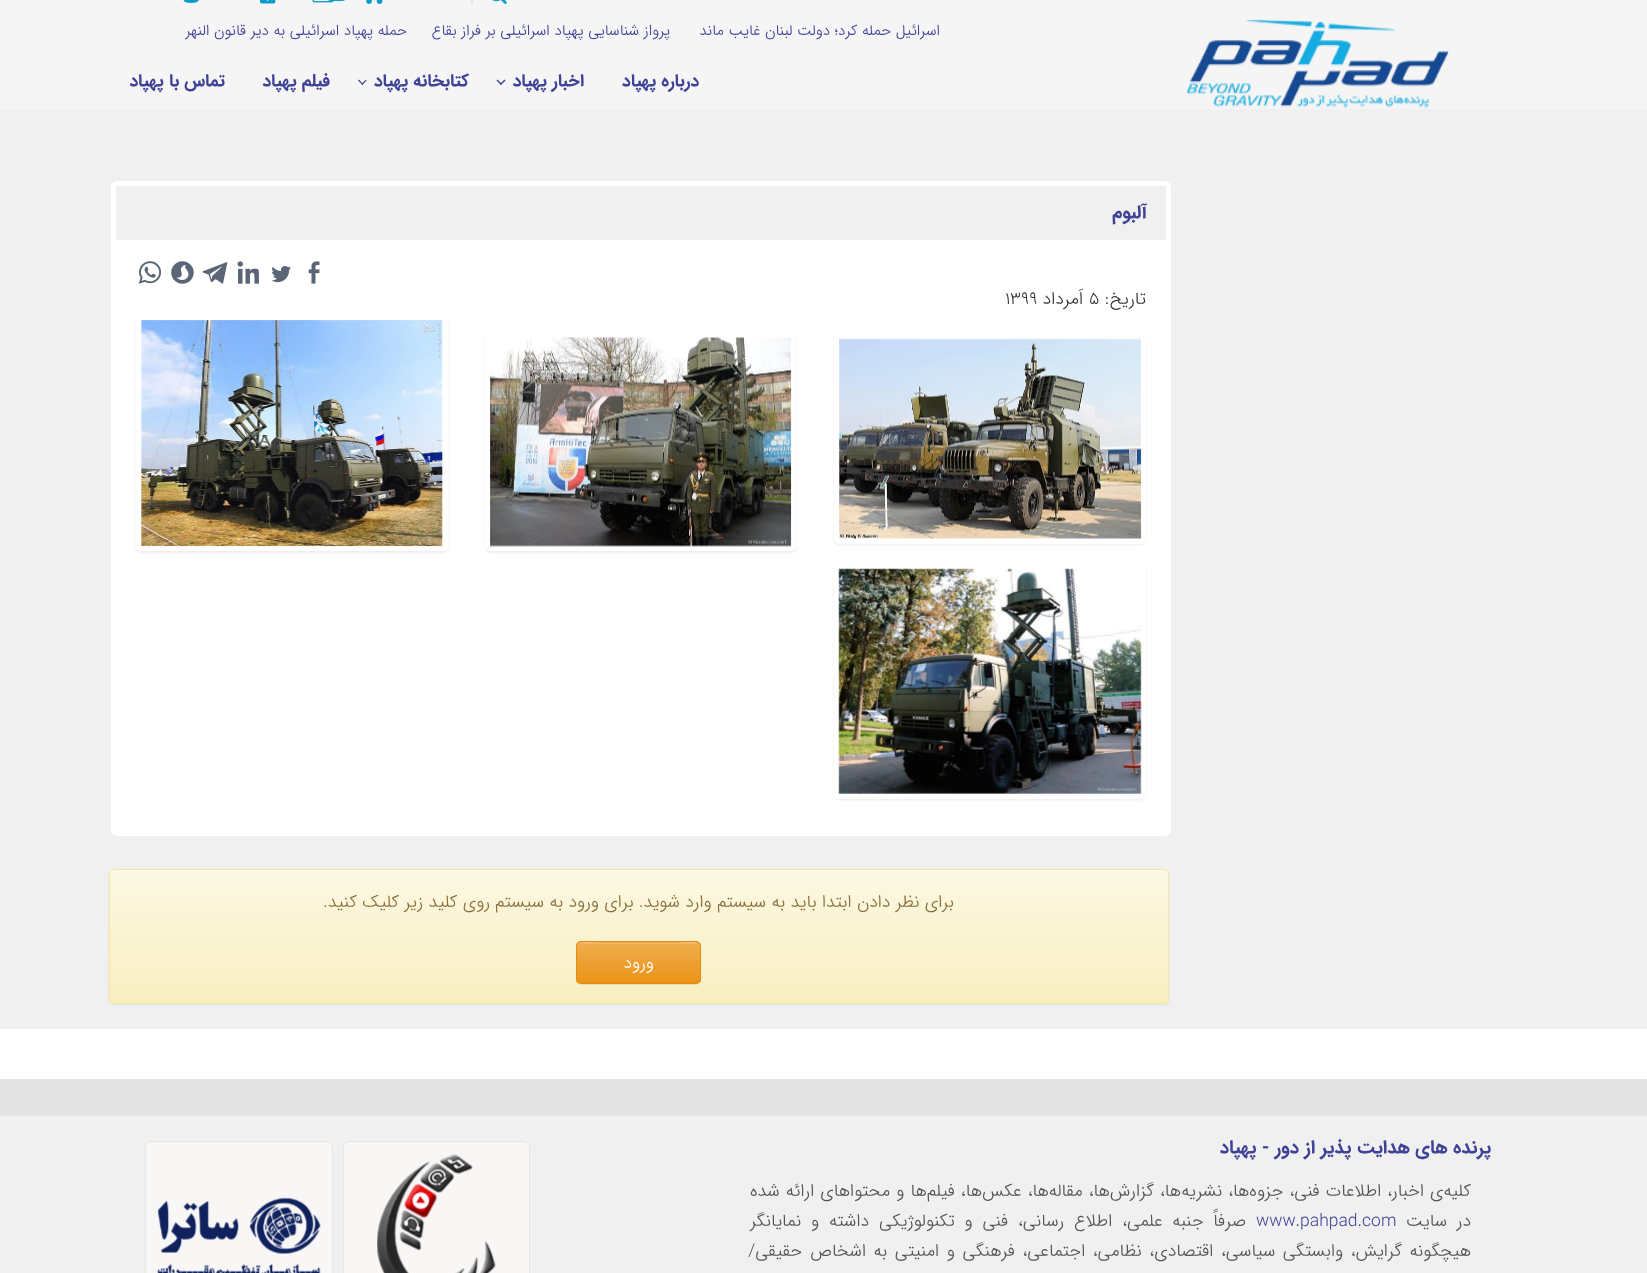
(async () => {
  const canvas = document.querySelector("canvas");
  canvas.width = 1647;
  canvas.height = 1273;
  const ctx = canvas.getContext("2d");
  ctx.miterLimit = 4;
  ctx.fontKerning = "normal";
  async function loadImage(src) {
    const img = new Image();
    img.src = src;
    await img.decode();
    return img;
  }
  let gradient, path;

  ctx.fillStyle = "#f0f0f0";
  ctx.fillRect(0, 0, 1647, 1273);
  ctx.fillStyle = "#f5f5f5";
  ctx.fillRect(0, 0, 1647, 109);
  ctx.drawImage(await loadImage("img/1.png"), 492, 0, 15, 4);
  path = new Path2D("M472-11V2.5");
  ctx.strokeStyle = "#adadad";
  ctx.lineWidth = 1.2;
  ctx.setLineDash([1.25, 1.25]);
  ctx.stroke(path);
  ctx.drawImage(await loadImage("img/2.png"), 366, 0, 17, 4);
  ctx.drawImage(await loadImage("img/3.png"), 312, 0, 22, 3);
  ctx.fillStyle = "#099bca";
  ctx.beginPath();
  ctx.roundRect(325, -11, 23, 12, 11);
  ctx.fill();
  ctx.drawImage(await loadImage("img/4.png"), 260, 0, 16, 4);
  ctx.drawImage(await loadImage("img/5.png"), 183, 0, 16, 3);
  ctx.drawImage(await loadImage("img/6.png"), 1186, 19, 263, 90);
  ctx.fillStyle = "#3f4197";
  path = new Path2D("M504.5 79.5L505.5 80.5L501 85L500 84Z");
  ctx.fill(path);
  path = new Path2D("M497.5 79.5L502 84L501 85L496.5 80.5Z");
  ctx.fill(path);
  path = new Path2D("M366 79.5L366.5 80.5L362.5 85L361.5 84Z");
  ctx.fill(path);
  path = new Path2D("M359 79.5L363 84L362.5 85L358 80.5Z");
  ctx.fill(path);
  ctx.fillStyle = "#ffffff";
  ctx.beginPath();
  ctx.roundRect(111, 181, 1060, 655, 6);
  ctx.fill();
  ctx.fillStyle = "#f0f0f0";
  ctx.fillRect(116, 186, 1050, 54);
  ctx.drawImage(await loadImage("img/7.png"), 308, 261, 12, 23);
  ctx.drawImage(await loadImage("img/8.png"), 271, 266, 20, 17);
  ctx.drawImage(await loadImage("img/9.png"), 237, 261, 22, 23);
  ctx.drawImage(await loadImage("img/10.png"), 202, 262, 26, 22);
  ctx.drawImage(await loadImage("img/11.png"), 171, 261, 23, 23);
  ctx.drawImage(await loadImage("img/12.png"), 138, 261, 23, 23);
  ctx.fillStyle = "rgba(0, 0, 0, 0.07)";
  ctx.filter = "blur(1px)";
  ctx.beginPath();
  ctx.roundRect(834, 335, 312, 210, 5);
  ctx.fill();
  ctx.filter = "none";
  ctx.fillStyle = "#ffffff";
  ctx.beginPath();
  ctx.roundRect(834, 334, 312, 210, 5);
  ctx.fill();
  ctx.drawImage(await loadImage("img/13.png"), 839, 338, 303, 201);
  ctx.fillStyle = "rgba(0, 0, 0, 0.07)";
  ctx.filter = "blur(1px)";
  ctx.beginPath();
  ctx.roundRect(485, 334, 311, 219, 5);
  ctx.fill();
  ctx.filter = "none";
  ctx.fillStyle = "#ffffff";
  ctx.beginPath();
  ctx.roundRect(485, 333, 311, 218, 5);
  ctx.fill();
  ctx.drawImage(await loadImage("img/14.png"), 490, 337, 302, 210);
  ctx.fillStyle = "rgba(0, 0, 0, 0.07)";
  ctx.filter = "blur(1px)";
  ctx.beginPath();
  ctx.roundRect(136, 316, 312, 237, 5);
  ctx.fill();
  ctx.filter = "none";
  ctx.fillStyle = "#ffffff";
  ctx.beginPath();
  ctx.roundRect(136, 315, 312, 236, 5);
  ctx.fill();
  ctx.drawImage(await loadImage("img/15.png"), 141, 320, 302, 227);
  ctx.fillStyle = "rgba(0, 0, 0, 0.07)";
  ctx.filter = "blur(1px)";
  ctx.beginPath();
  ctx.roundRect(834, 565, 312, 235, 5);
  ctx.fill();
  ctx.filter = "none";
  ctx.fillStyle = "#ffffff";
  ctx.beginPath();
  ctx.roundRect(834, 564, 312, 235, 5);
  ctx.fill();
  ctx.drawImage(await loadImage("img/16.png"), 838, 568, 304, 226);
  ctx.fillStyle = "rgba(0, 0, 0, 0.05)";
  ctx.filter = "blur(1px)";
  ctx.beginPath();
  ctx.roundRect(109, 870, 1060, 135, 5);
  ctx.fill();
  ctx.filter = "none";
  ctx.save();
  ctx.beginPath();
  ctx.roundRect(109, 869, 1060, 135, 5);
  ctx.clip();
  gradient = ctx.createLinearGradient(639, 870, 639, 1003);
  gradient.addColorStop(0, "#fcf8e3");
  gradient.addColorStop(1, "#f8efc0");
  ctx.fillStyle = gradient;
  ctx.fillRect(109, 870, 1060, 133);
  ctx.restore();
  ctx.fillStyle = "#fdfaea";
  path = new Path2D("M114 871H1164C1166 871 1168 873 1168 875C1168 872 1167 870 1164 870H114C111 870 110 872 110 875C110 873 112 871 114 871Z");
  ctx.fill(path);
  ctx.beginPath();
  ctx.roundRect(109.5, 869.5, 1059, 134, 4.5);
  ctx.strokeStyle = "#f5e79e";
  ctx.lineWidth = 1;
  ctx.setLineDash([]);
  ctx.stroke();
  ctx.fillStyle = "rgba(0, 0, 0, 0.07)";
  ctx.filter = "blur(0.5px)";
  ctx.beginPath();
  ctx.roundRect(576, 943, 125, 42, 5);
  ctx.fill();
  ctx.filter = "none";
  ctx.fillStyle = "#f0ad4e";
  ctx.beginPath();
  ctx.roundRect(576, 941, 125, 43, 5);
  ctx.fill();
  ctx.save();
  ctx.beginPath();
  ctx.roundRect(576, 941, 125, 43, 5);
  ctx.clip();
  gradient = ctx.createLinearGradient(639, 943, 639, 983);
  gradient.addColorStop(0, "#f0ad4e");
  gradient.addColorStop(1, "#eb9316");
  ctx.fillStyle = gradient;
  ctx.fillRect(576, 943, 125, 40);
  ctx.restore();
  ctx.fillStyle = "#f2b968";
  path = new Path2D("M581 944H696C698 944 700 945 700 948C700 938 680 943 677 943H601C598 943 578 938 578 948C578 945 579 944 581 944Z");
  ctx.fill(path);
  ctx.beginPath();
  ctx.roundRect(576.5, 941.5, 124, 42, 4.5);
  ctx.strokeStyle = "#e38d13";
  ctx.stroke();
  ctx.fillStyle = "#ffffff";
  ctx.fillRect(0, 1029, 1647, 50);
  ctx.fillStyle = "#e4e4e4";
  ctx.fillRect(0, 1079, 1647, 37);
  ctx.fillStyle = "#f9f6f6";
  ctx.beginPath();
  ctx.roundRect(343.5, 1141.5, 186, 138, 5.5);
  ctx.fill();
  ctx.strokeStyle = "#e5e5ea";
  ctx.stroke();
  ctx.drawImage(await loadImage("img/17.png"), 377, 1154, 119, 119);
  ctx.beginPath();
  ctx.roundRect(145.5, 1141.5, 187, 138, 5.5);
  ctx.fill();
  ctx.stroke();
  ctx.drawImage(await loadImage("img/18.png"), 157, 1197, 164, 76);
  ctx.direction = "rtl";
  ctx.font = "300 15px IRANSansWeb";
  ctx.fillStyle = "#3f4197";
  for (const [text, x, y] of [
    ["اسرائیل حمله کرد؛ دولت لبنان غایب ماند", 940, 35],
    ["پرواز شناسایی پهپاد اسرائیلی بر فراز بقاع", 670, 35],
    ["حمله پهپاد اسرائیلی به دیر قانون النهر", 407, 35],
  ]) {
    ctx.fillText(text, x, y);
  }
  ctx.font = "bold 17.5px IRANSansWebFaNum";
  for (const [text, x, y] of [
    ["درباره پهپاد", 699, 86],
    ["اخبار پهپاد", 584, 86],
    ["کتابخانه پهپاد", 469, 86],
    ["فیلم پهپاد", 330, 86],
    ["تماس با پهپاد", 225, 86],
  ]) {
    ctx.fillText(text, x, y);
  }
  ctx.font = "bold 18.75px IRANSansWebFaNum";
  ctx.fillText("آلبوم", 1147, 218);
  ctx.font = "300 17.5px IRANSansWeb";
  ctx.fillStyle = "#333333";
  ctx.fillText("تاریخ:", 1146, 304);
  ctx.direction = "ltr";
  ctx.fillText("۵", 1089, 304);
  ctx.direction = "rtl";
  ctx.fillText("اَمرداد", 1083, 304);
  ctx.direction = "ltr";
  ctx.fillText("۱۳۹۹", 1005, 304);
  ctx.direction = "rtl";
  ctx.fillStyle = "#8a6d3b";
  ctx.fillText("برای نظر دادن ابتدا باید به سیستم وارد شوید. برای ورود به سیستم", 954, 907);
  ctx.fillText("روی کلید زیر کلیک کنید.", 490, 907);
  ctx.fillStyle = "#ffffff";
  ctx.fillText("ورود", 654, 968);
  ctx.font = "bold 18.75px IRANSansWebFaNum";
  ctx.fillStyle = "#3f4197";
  ctx.fillText("پرنده های هدایت پذیر از دور - پهپاد", 1491, 1153);
  ctx.wordSpacing = "0.75px";
  ctx.font = "300 17.5px IRANSansWeb";
  ctx.fillStyle = "#535353";
  ctx.fillText("کلیه‌ی اخبار، اطلاعات فنی، جزوه‌ها، نشریه‌ها، گزارش‌ها، مقاله‌ها، عکس‌ها، فیلم‌ها و محتواهای ارائه شده", 1471, 1196);
  ctx.wordSpacing = "4.5px";
  ctx.fillText("در سایت", 1471, 1226);
  ctx.wordSpacing = "0px";
  ctx.direction = "ltr";
  ctx.fillStyle = "#3f4197";
  ctx.fillText("www.pahpad.com", 1256, 1226);
  ctx.wordSpacing = "4.5px";
  ctx.direction = "rtl";
  ctx.fillStyle = "#535353";
  ctx.fillText("صرفاً جنبه علمی، اطلاع رسانی، فنی و تکنولوژیکی داشته و نمایانگر", 1246, 1226);
  ctx.wordSpacing = "2.25px";
  ctx.fillText("هیچگونه گرایش، وابستگی سیاسی، اقتصادی، نظامی، اجتماعی، فرهنگی و امنیتی به اشخاص حقیقی/", 1471, 1256);
})();
